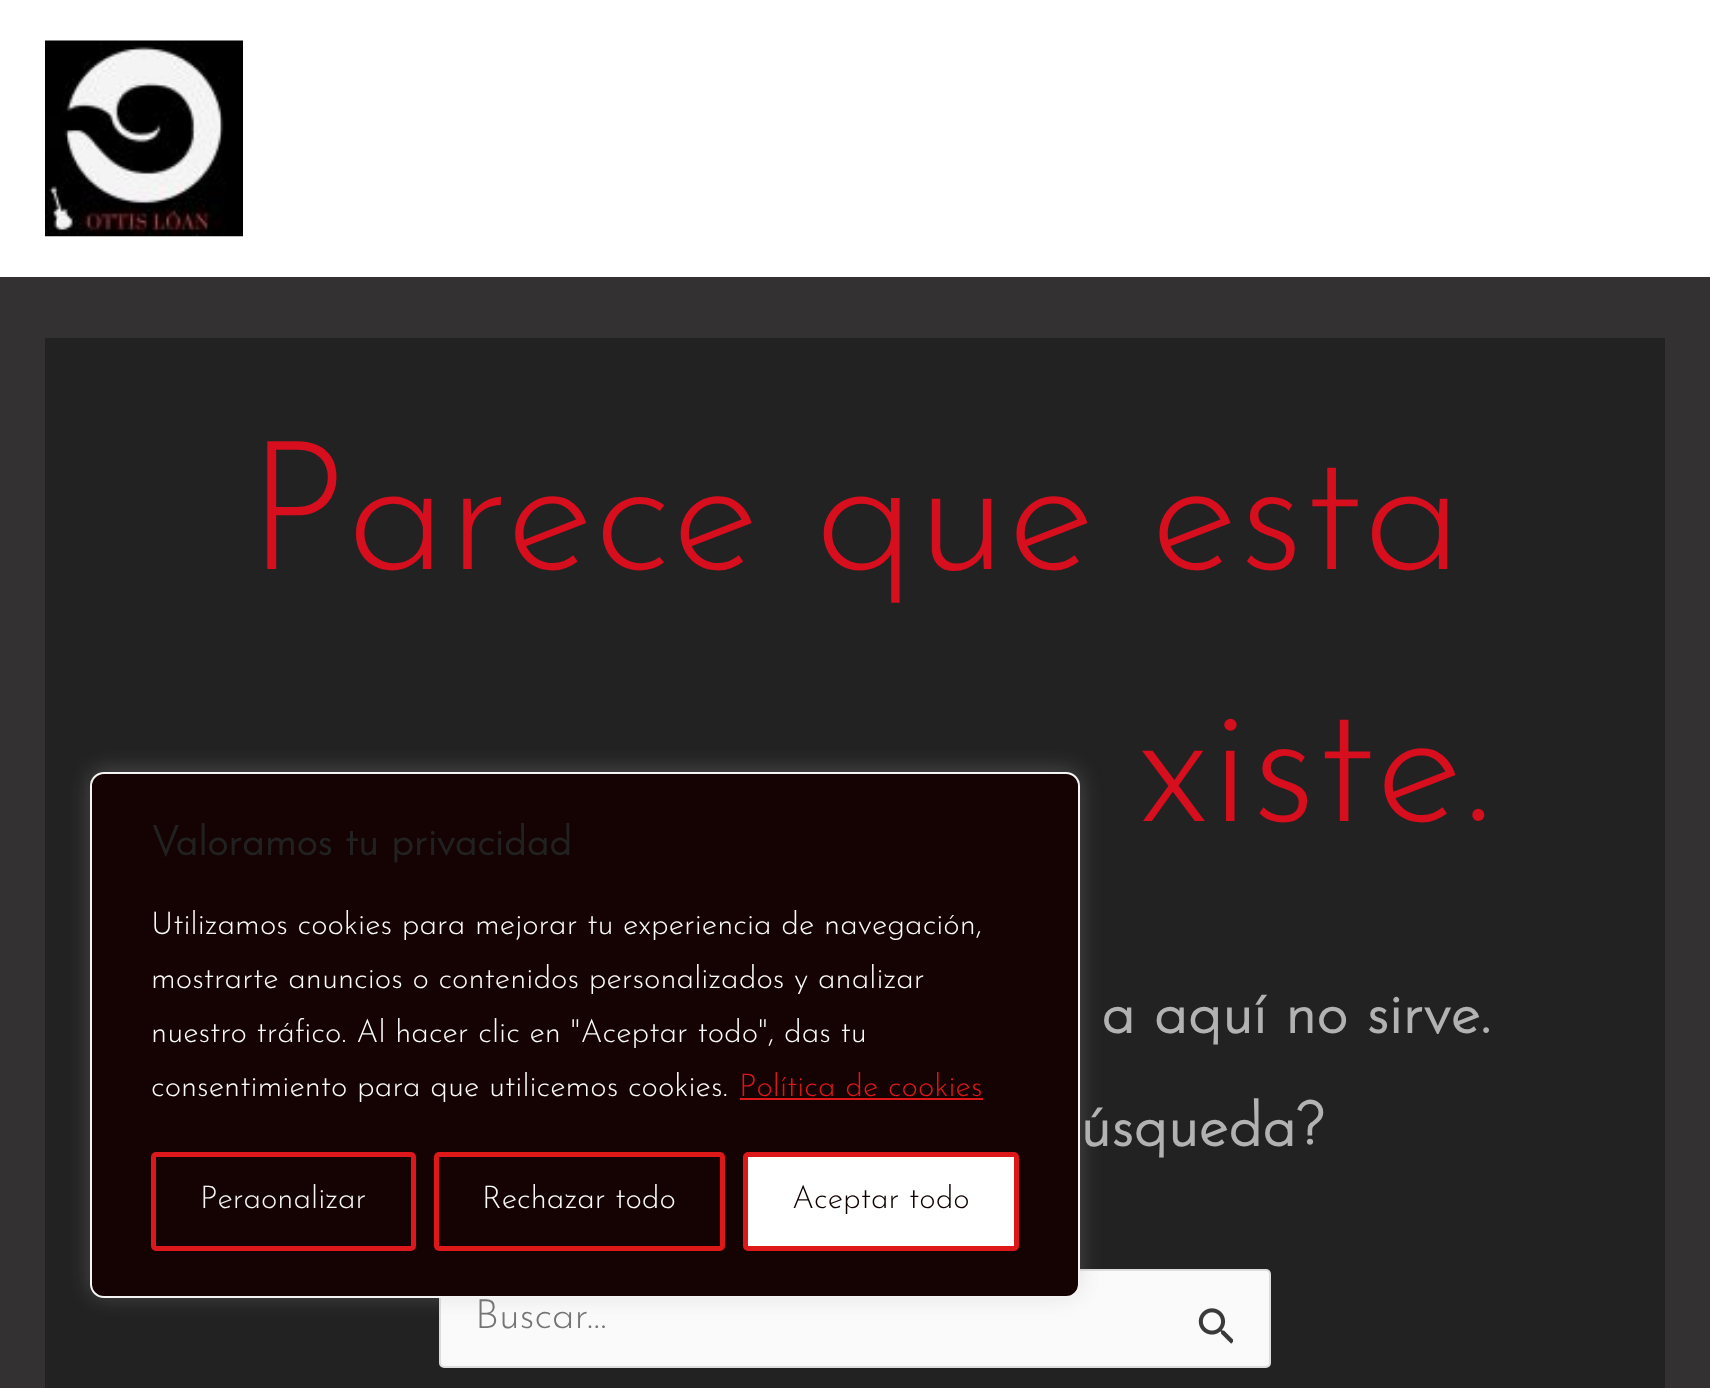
(async () => {
  const canvas = document.querySelector("canvas");
  canvas.width = 1710;
  canvas.height = 1388;
  const ctx = canvas.getContext("2d");
  ctx.miterLimit = 4;
  ctx.fontKerning = "normal";
  async function loadImage(src) {
    const img = new Image();
    img.src = src;
    await img.decode();
    return img;
  }

  ctx.fillStyle = "#333132";
  ctx.fillRect(0, 0, 1710, 1388);
  ctx.fillStyle = "#ffffff";
  ctx.fillRect(0, 0, 1710, 277);
  ctx.drawImage(await loadImage("img/1.png"), 45, 40, 198, 197);
  ctx.fillStyle = "#222222";
  ctx.fillRect(45, 338, 1620, 1050);
  ctx.fillStyle = "#fafafa";
  ctx.beginPath();
  ctx.roundRect(440, 1270, 830, 97, 4);
  ctx.fill();
  ctx.strokeStyle = "#dddddd";
  ctx.lineWidth = 2;
  ctx.stroke();
  ctx.drawImage(await loadImage("img/2.png"), 1198, 1308, 35, 36);
  ctx.fillStyle = "rgba(172, 171, 171, 0.3)";
  ctx.filter = "blur(11px)";
  ctx.beginPath();
  ctx.roundRect(90, 770, 990, 526, 14);
  ctx.fill();
  ctx.filter = "none";
  ctx.fillStyle = "#150202";
  ctx.beginPath();
  ctx.roundRect(91, 773, 988, 524, 13);
  ctx.fill();
  ctx.strokeStyle = "#f4f4f4";
  ctx.stroke();
  ctx.fillStyle = "#dc1818";
  ctx.fillRect(740, 1098, 243, 2);
  ctx.beginPath();
  ctx.roundRect(153.5, 1154.5, 260, 94, 2.5);
  ctx.strokeStyle = "#dc181d";
  ctx.lineWidth = 5;
  ctx.stroke();
  ctx.beginPath();
  ctx.roundRect(436.5, 1154.5, 286, 94, 2.5);
  ctx.strokeStyle = "#dc1818";
  ctx.stroke();
  ctx.fillStyle = "#ffffff";
  ctx.beginPath();
  ctx.roundRect(745.5, 1154.5, 271, 94, 2.5);
  ctx.fill();
  ctx.stroke();
  ctx.font = "100 180px Josefin Sans";
  ctx.fillStyle = "#d70e1d";
  ctx.fillText("Parece que esta", 247, 569);
  ctx.fillText("xiste.", 1137, 821);
  ctx.font = "bold 60.75px Josefin Sans";
  ctx.fillStyle = "#b2b2b2";
  ctx.fillText("a aquí no sirve.", 1101, 1033);
  ctx.fillText("úsqueda?", 1080, 1146);
  ctx.font = "100 40.5px Josefin Sans";
  ctx.fillStyle = "#757575";
  ctx.fillText("Buscar...", 475, 1328);
  ctx.font = "bold 40.5px Josefin Sans";
  ctx.fillStyle = "#212121";
  ctx.fillText("Valoramos tu privacidad", 151, 855);
  ctx.font = "100 31.5px Josefin Sans";
  ctx.fillStyle = "#fbfbfb";
  for (const [text, x, y] of [
    ["Utilizamos cookies para mejorar tu experiencia de navegación,", 151, 934],
    ["mostrarte anuncios o contenidos personalizados y analizar", 151, 988],
    ["nuestro tráfico. Al hacer clic en \"Aceptar todo\", das tu", 151, 1042],
    ["consentimiento para que utilicemos cookies.", 151, 1096],
  ]) {
    ctx.fillText(text, x, y);
  }
  ctx.fillStyle = "#dc1818";
  ctx.fillText("Política de cookies", 739, 1096);
  ctx.fillStyle = "#f4f5f5";
  ctx.fillText("Peraonalizar", 200, 1208);
  ctx.fillStyle = "#fbfbfb";
  ctx.fillText("Rechazar todo", 482, 1208);
  ctx.fillStyle = "#0f0000";
  ctx.fillText("Aceptar todo", 792, 1208);
})();
